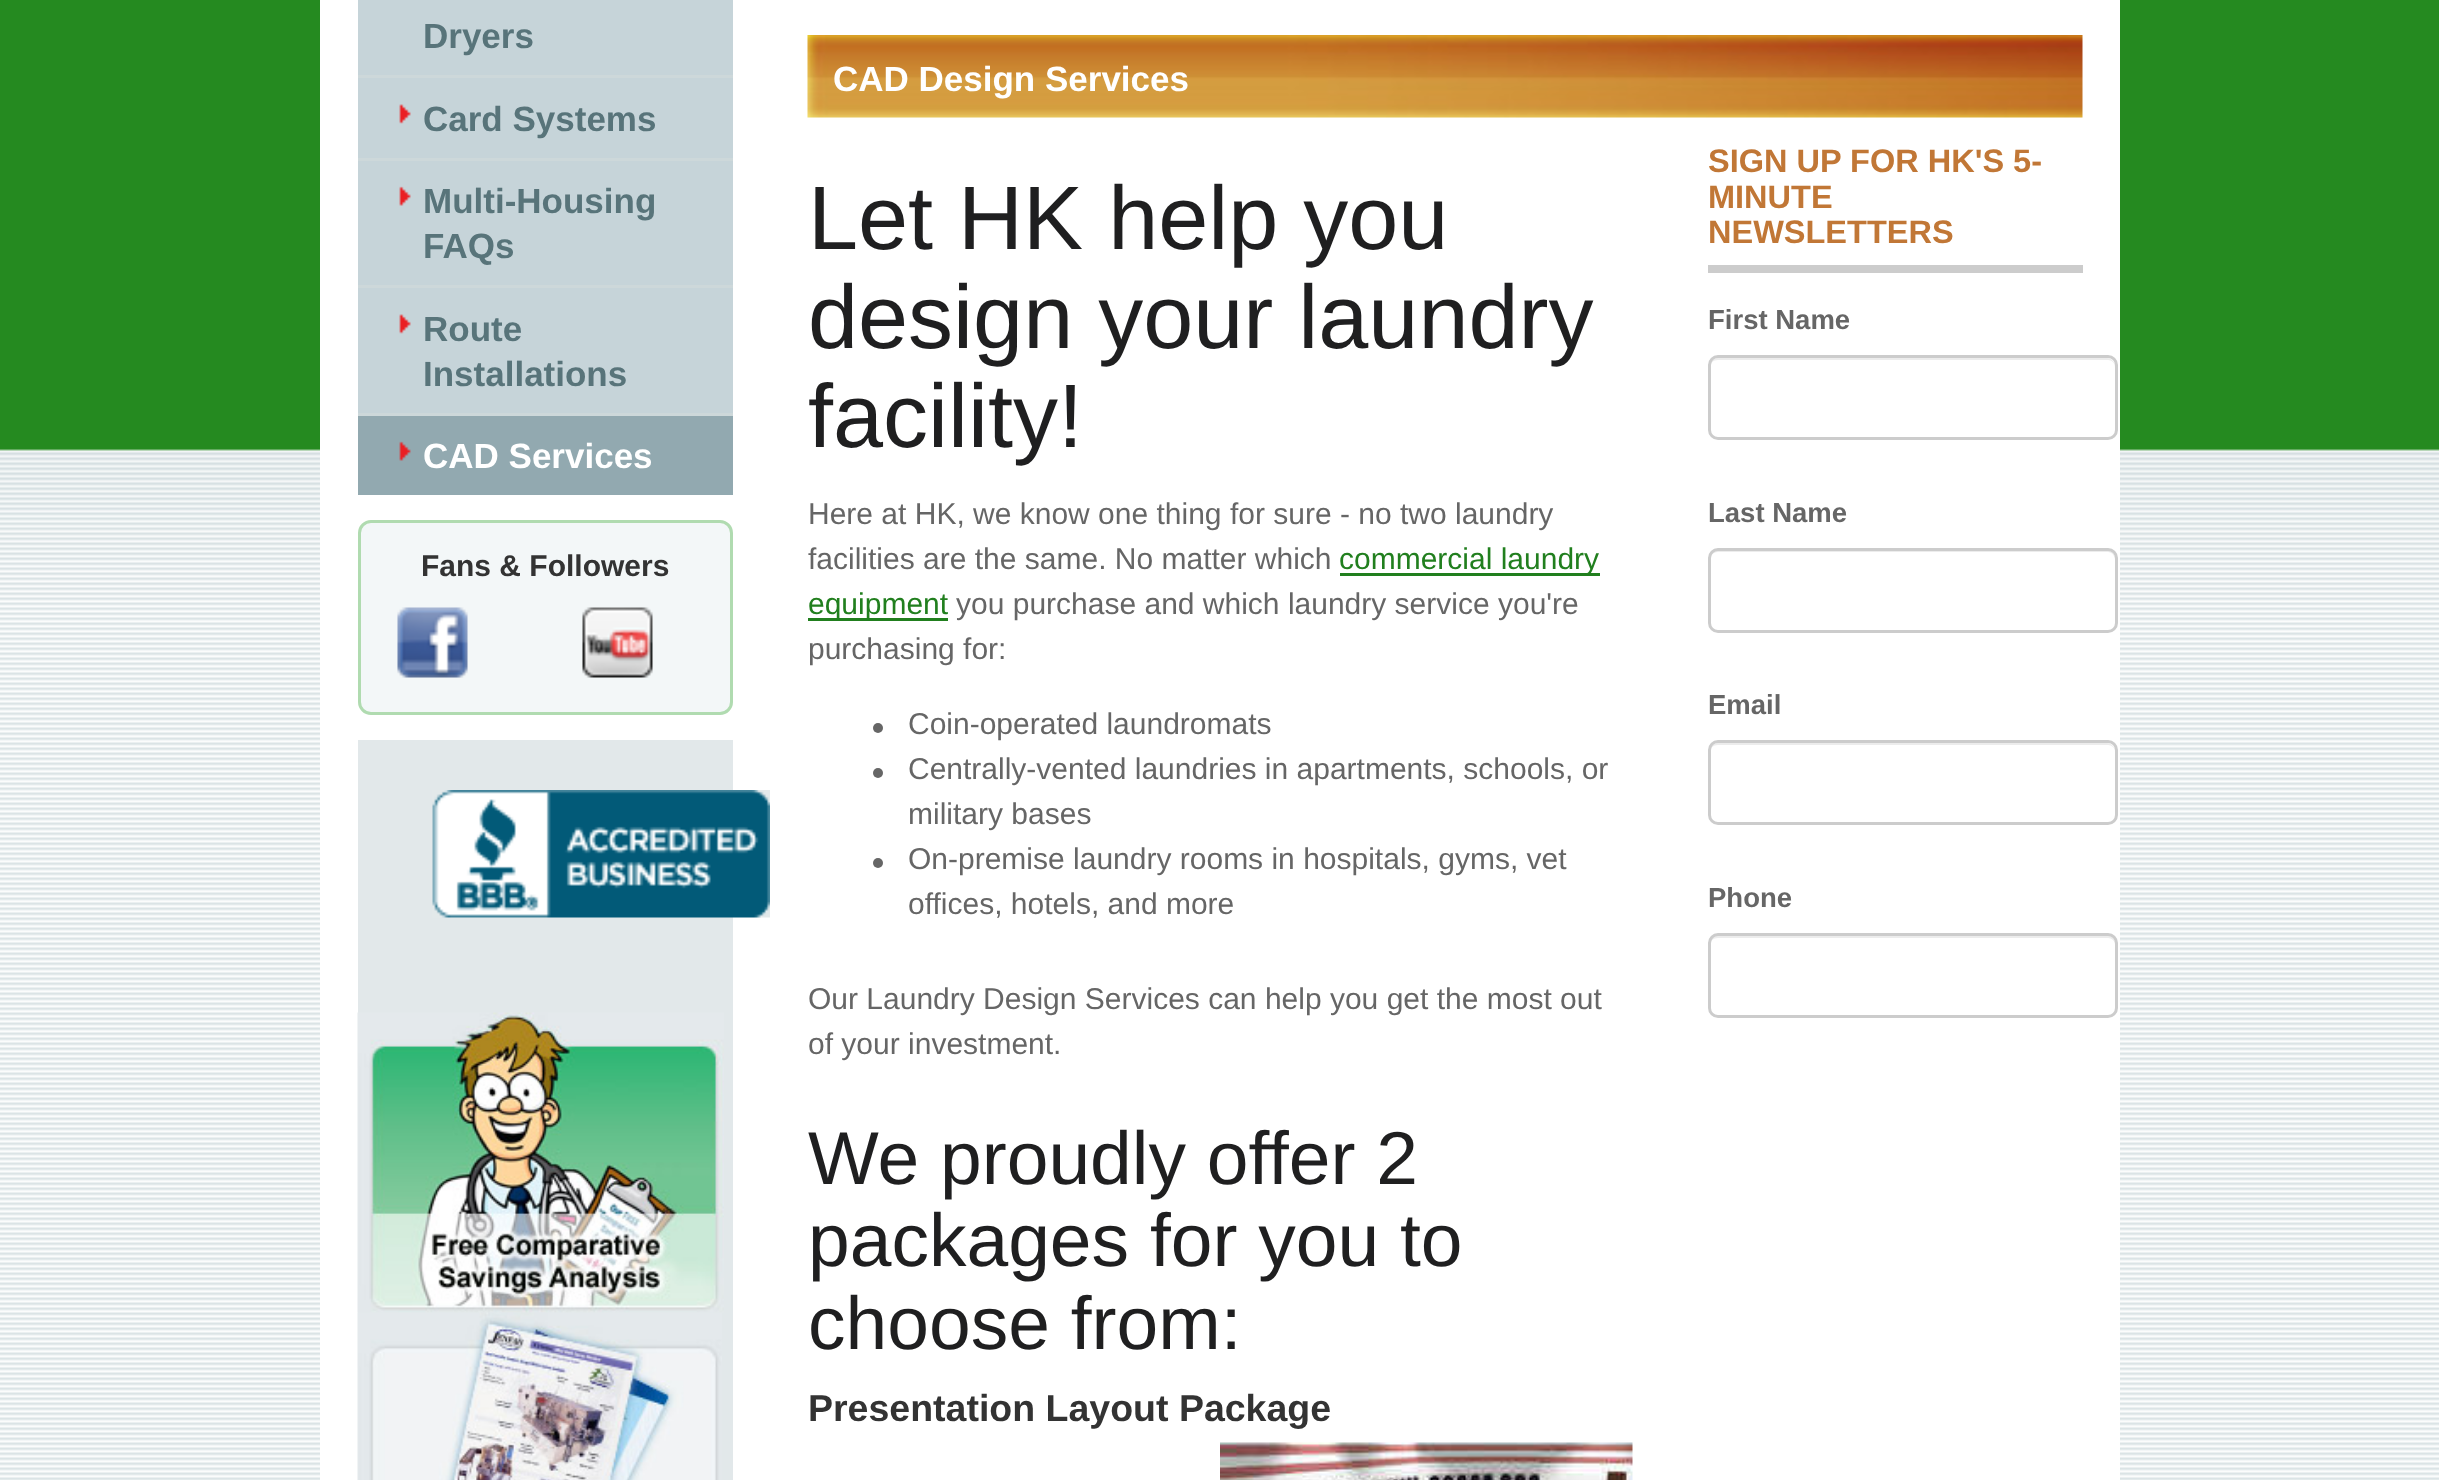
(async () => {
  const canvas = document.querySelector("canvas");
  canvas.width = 2439;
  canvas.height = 1480;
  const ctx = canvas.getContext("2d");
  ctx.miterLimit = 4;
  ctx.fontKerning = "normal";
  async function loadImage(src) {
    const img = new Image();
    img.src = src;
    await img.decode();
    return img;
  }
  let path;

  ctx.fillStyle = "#ffffff";
  ctx.fillRect(0, 0, 2439, 1480);
  ctx.drawImage(await loadImage("img/1.png"), 0, 0, 2439, 1480);
  for (const [x, y, w, h, color] of [
    [320, 0, 1800, 1480, "#ffffff"],
    [358, 0, 375, 75, "#c6d4d9"],
    [358, 78, 375, 80, "#c6d4d9"],
  ]) {
    ctx.fillStyle = color;
    ctx.fillRect(x, y, w, h);
  }
  ctx.drawImage(await loadImage("img/2.png"), 399, 104, 12, 20);
  ctx.fillStyle = "#cdd8da";
  ctx.fillRect(358, 75, 375, 3);
  ctx.fillStyle = "#c6d4d9";
  ctx.fillRect(358, 161, 375, 124);
  ctx.drawImage(await loadImage("img/3.png"), 399, 186, 12, 20);
  ctx.fillStyle = "#cdd8da";
  ctx.fillRect(358, 158, 375, 3);
  ctx.fillStyle = "#c6d4d9";
  ctx.fillRect(358, 288, 375, 125);
  ctx.drawImage(await loadImage("img/4.png"), 399, 314, 12, 20);
  ctx.fillStyle = "#cdd8da";
  ctx.fillRect(358, 285, 375, 3);
  ctx.fillStyle = "#92a9b0";
  ctx.fillRect(358, 416, 375, 79);
  ctx.drawImage(await loadImage("img/5.png"), 399, 441, 12, 20);
  ctx.fillStyle = "#cdd8da";
  ctx.fillRect(358, 413, 375, 3);
  ctx.fillStyle = "#f3f7f8";
  ctx.beginPath();
  ctx.roundRect(359.5, 521.5, 372, 192, 11.5);
  ctx.fill();
  ctx.strokeStyle = "#b0dbb0";
  ctx.lineWidth = 3;
  ctx.stroke();
  ctx.drawImage(await loadImage("img/6.png"), 397, 607, 71, 71);
  ctx.drawImage(await loadImage("img/7.png"), 582, 607, 71, 71);
  ctx.fillStyle = "#e2e8ea";
  ctx.fillRect(358, 740, 375, 740);
  ctx.drawImage(await loadImage("img/8.png"), 432, 790, 338, 128);
  ctx.drawImage(await loadImage("img/9.png"), 357, 1012, 367, 301);
  ctx.drawImage(await loadImage("img/10.png"), 357, 1312, 365, 168);
  ctx.drawImage(await loadImage("img/11.png"), 807, 35, 1276, 83);
  ctx.fillStyle = "#217f1e";
  ctx.fillRect(1340, 573, 260, 3);
  ctx.fillRect(808, 618, 140, 3);
  ctx.fillStyle = "#666666";
  ctx.beginPath();
  ctx.arc(878, 728, 5, 0, Math.PI * 2);
  ctx.fill();
  ctx.beginPath();
  ctx.arc(878, 773, 5, 0, Math.PI * 2);
  ctx.fill();
  ctx.beginPath();
  ctx.arc(878, 863, 5, 0, Math.PI * 2);
  ctx.fill();
  ctx.drawImage(await loadImage("img/12.png"), 1220, 1442, 413, 38);
  ctx.fillStyle = "#cccccc";
  ctx.fillRect(1708, 265, 375, 8);
  ctx.fillStyle = "#ececec";
  path = new Path2D("M1718 360H2108C2112 360 2115 363 2115 368V366C2115 362 2111 358 2107 358H1718C1714 358 1710 362 1710 366V368C1710 363 1713 360 1718 360Z");
  ctx.fill(path);
  ctx.beginPath();
  ctx.roundRect(1709.5, 356.5, 407, 82, 8.5);
  ctx.strokeStyle = "#cccccc";
  ctx.stroke();
  path = new Path2D("M1718 552H2108C2112 552 2115 556 2115 560V558C2115 554 2111 550 2107 550H1718C1714 550 1710 554 1710 558V560C1710 556 1713 552 1718 552Z");
  ctx.fill(path);
  ctx.beginPath();
  ctx.roundRect(1709.5, 549.5, 407, 82, 8.5);
  ctx.stroke();
  path = new Path2D("M1718 745H2108C2112 745 2115 748 2115 752V751C2115 747 2111 743 2107 743H1718C1714 743 1710 747 1710 751V752C1710 748 1713 745 1718 745Z");
  ctx.fill(path);
  ctx.beginPath();
  ctx.roundRect(1709.5, 741.5, 407, 82, 8.5);
  ctx.stroke();
  path = new Path2D("M1718 938H2108C2112 938 2115 941 2115 945V943C2115 939 2111 935 2107 935H1718C1714 935 1710 939 1710 943V945C1710 941 1713 938 1718 938Z");
  ctx.fill(path);
  ctx.beginPath();
  ctx.roundRect(1709.5, 934.5, 407, 82, 8.5);
  ctx.stroke();
  ctx.font = "bold 35px Liberation Sans";
  ctx.fillStyle = "#58747a";
  for (const [text, x, y] of [
    ["Dryers", 423, 48],
    ["Card Systems", 423, 131],
    ["Multi-Housing", 423, 213],
    ["FAQs", 423, 258],
    ["Route", 423, 341],
    ["Installations", 423, 386],
  ]) {
    ctx.fillText(text, x, y);
  }
  ctx.fillStyle = "#ffffff";
  ctx.fillText("CAD Services", 423, 468);
  ctx.font = "bold 30px Liberation Sans";
  ctx.fillStyle = "#333333";
  ctx.fillText("Fans & Followers", 421, 576);
  ctx.font = "bold 35px Liberation Sans";
  ctx.fillStyle = "#ffffff";
  ctx.fillText("CAD Design Services", 833, 91);
  ctx.font = "90px Liberation Sans";
  ctx.fillStyle = "#1f1f20";
  for (const [text, x, y] of [
    ["Let HK help you", 808, 249],
    ["design your laundry", 808, 348],
    ["facility!", 808, 447],
  ]) {
    ctx.fillText(text, x, y);
  }
  ctx.font = "30px Liberation Sans";
  ctx.fillStyle = "#666666";
  ctx.fillText("Here at HK, we know one thing for sure - no two laundry", 808, 524);
  ctx.fillText("facilities are the same. No matter which", 808, 569);
  ctx.fillStyle = "#217f1e";
  ctx.fillText("commercial laundry", 1339, 569);
  ctx.fillText("equipment", 808, 614);
  ctx.fillStyle = "#666666";
  for (const [text, x, y] of [
    ["you purchase and which laundry service you're", 956, 614],
    ["purchasing for:", 808, 659],
    ["Coin-operated laundromats", 908, 734],
    ["Centrally-vented laundries in apartments, schools, or", 908, 779],
    ["military bases", 908, 824],
    ["On-premise laundry rooms in hospitals, gyms, vet", 908, 869],
    ["offices, hotels, and more", 908, 914],
    ["Our Laundry Design Services can help you get the most out", 808, 1009],
    ["of your investment.", 808, 1054],
  ]) {
    ctx.fillText(text, x, y);
  }
  ctx.font = "75px Liberation Sans";
  ctx.fillStyle = "#1f1f20";
  for (const [text, x, y] of [
    ["We proudly offer 2", 808, 1184],
    ["packages for you to", 808, 1266],
    ["choose from:", 808, 1349],
  ]) {
    ctx.fillText(text, x, y);
  }
  ctx.font = "bold 37.5px Liberation Sans";
  ctx.fillStyle = "#333333";
  ctx.fillText("Presentation Layout Package", 808, 1421);
  ctx.font = "bold 32.5px Liberation Sans";
  ctx.fillStyle = "#c17736";
  for (const [text, x, y] of [
    ["SIGN UP FOR HK'S 5-", 1708, 172],
    ["MINUTE", 1708, 208],
    ["NEWSLETTERS", 1708, 243],
  ]) {
    ctx.fillText(text, x, y);
  }
  ctx.font = "bold 27.5px Liberation Sans";
  ctx.fillStyle = "#666666";
  for (const [text, x, y] of [
    ["First Name", 1708, 329],
    ["Last Name", 1708, 522],
    ["Email", 1708, 714],
    ["Phone", 1708, 907],
  ]) {
    ctx.fillText(text, x, y);
  }
})();
